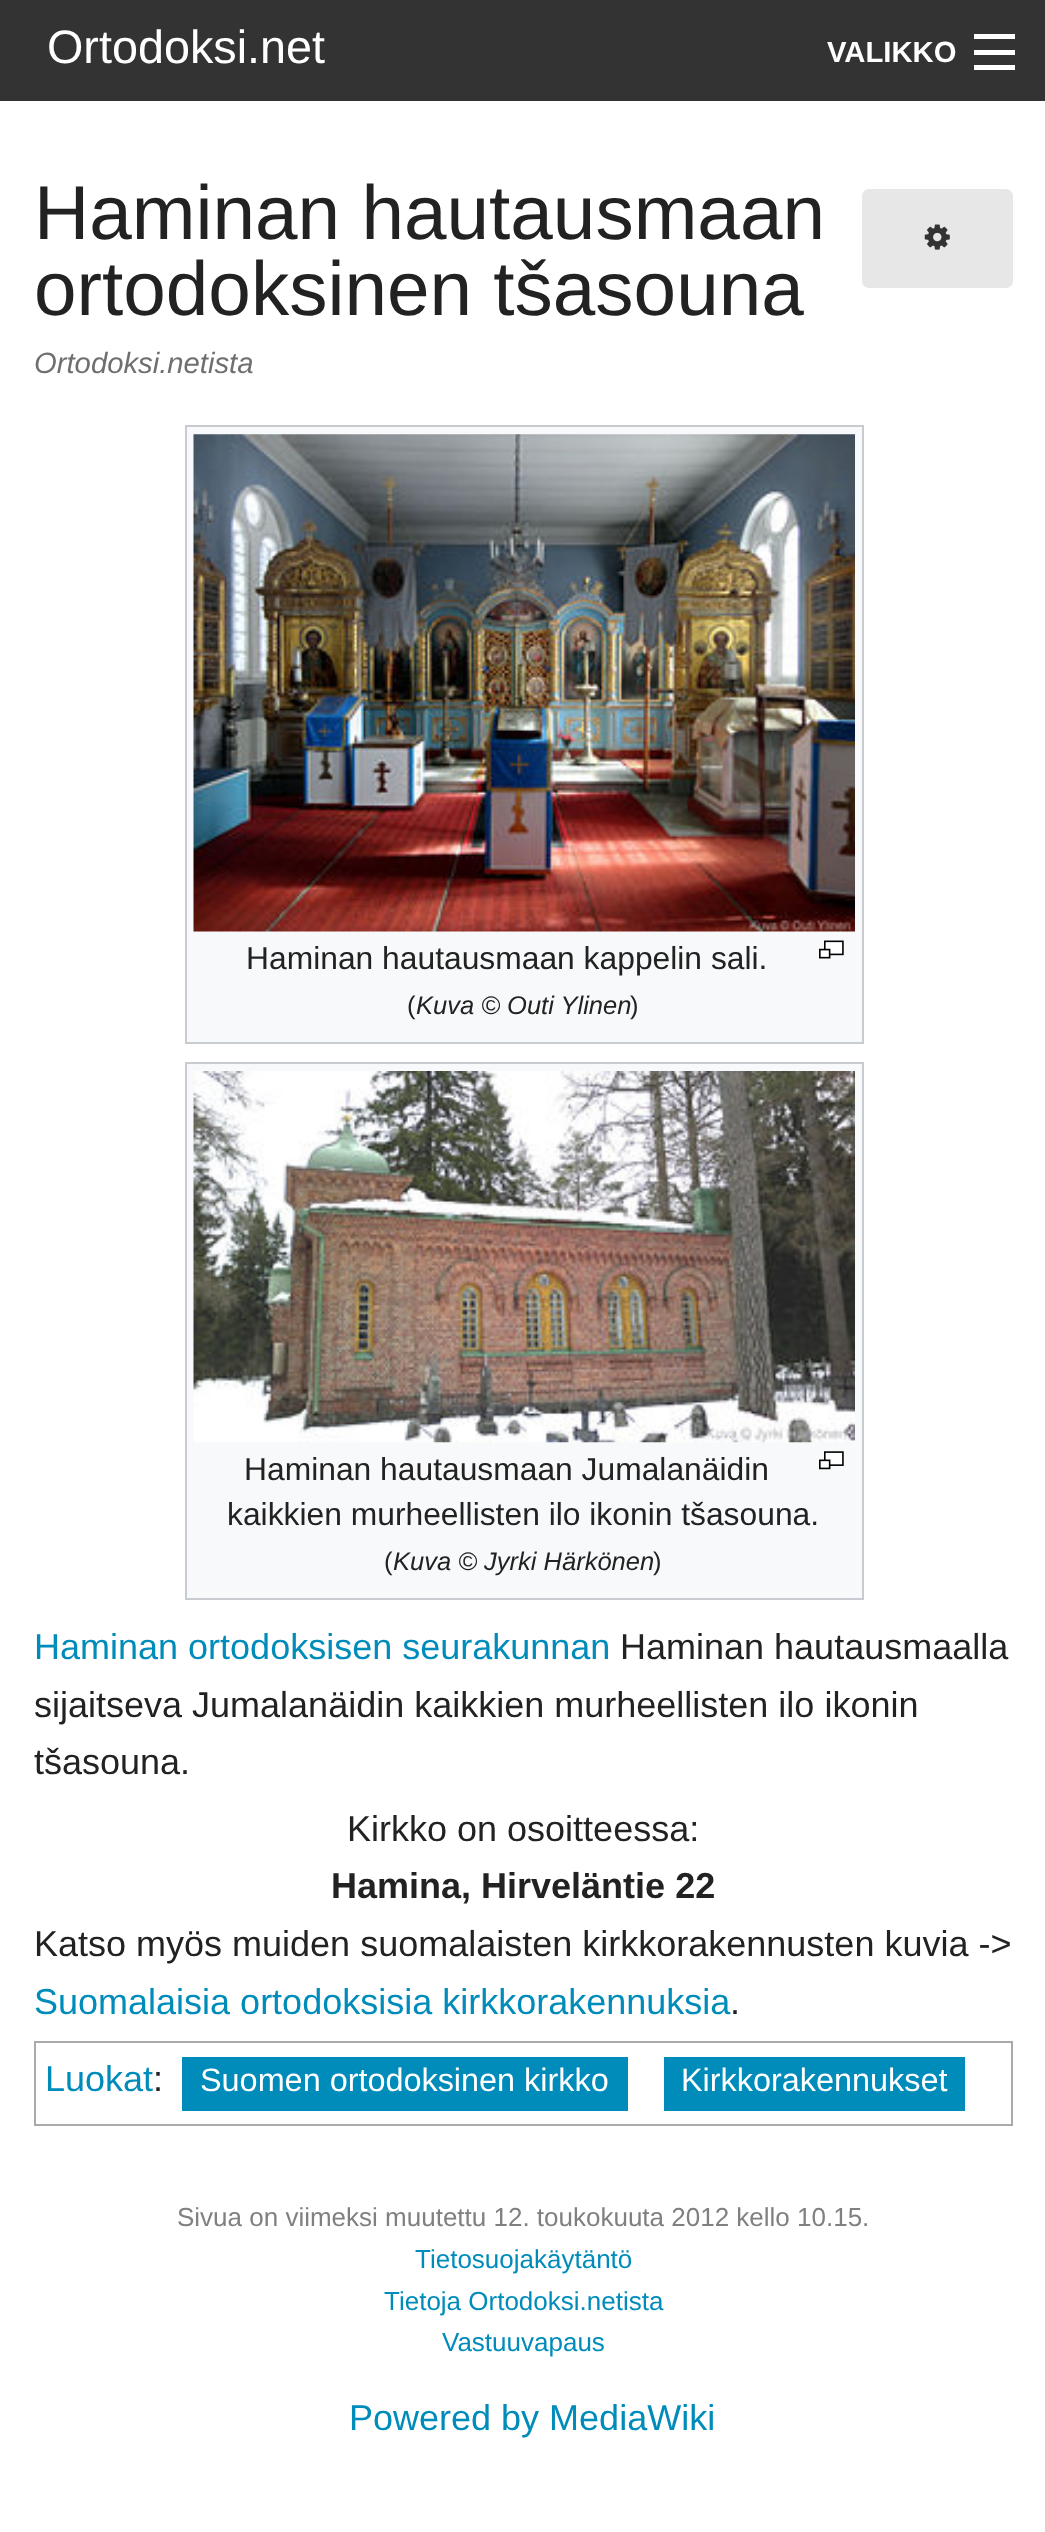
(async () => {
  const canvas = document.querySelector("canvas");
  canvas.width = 1045;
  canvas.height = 2532;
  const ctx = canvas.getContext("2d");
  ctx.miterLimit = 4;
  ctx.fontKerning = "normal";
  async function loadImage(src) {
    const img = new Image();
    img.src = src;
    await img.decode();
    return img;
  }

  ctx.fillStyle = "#ffffff";
  ctx.fillRect(0, 0, 1045, 2532);
  for (const [x, y, w, h, color] of [
    [0, 0, 1045, 101, "#333333"],
    [974, 65, 41, 5, "#ffffff"],
    [974, 50, 41, 5, "#ffffff"],
    [974, 34, 41, 5, "#ffffff"],
  ]) {
    ctx.fillStyle = color;
    ctx.fillRect(x, y, w, h);
  }
  ctx.fillStyle = "#f8f9fa";
  ctx.beginPath();
  ctx.rect(186, 426, 677, 617);
  ctx.fill();
  ctx.strokeStyle = "#c8ccd1";
  ctx.lineWidth = 2;
  ctx.stroke();
  ctx.drawImage(await loadImage("img/1.png"), 193, 434, 662, 498);
  ctx.drawImage(await loadImage("img/2.png"), 819, 940, 25, 19);
  ctx.beginPath();
  ctx.rect(186, 1063, 677, 536);
  ctx.fill();
  ctx.stroke();
  ctx.drawImage(await loadImage("img/3.png"), 193, 1071, 662, 372);
  ctx.drawImage(await loadImage("img/4.png"), 819, 1451, 25, 19);
  ctx.strokeStyle = "#aaaaaa";
  ctx.strokeRect(35, 2042, 977, 83);
  ctx.fillStyle = "#008cba";
  ctx.fillRect(182, 2057, 446, 54);
  ctx.fillRect(664, 2057, 301, 54);
  ctx.fillStyle = "#e7e7e7";
  ctx.beginPath();
  ctx.roundRect(862, 189, 151, 99, 7);
  ctx.fill();
  ctx.drawImage(await loadImage("img/5.png"), 924, 224, 26, 26);
  ctx.font = "46.75px Liberation Sans";
  ctx.fillStyle = "#ffffff";
  ctx.fillText("Ortodoksi.net", 47, 63);
  ctx.font = "bold 29.25px Liberation Sans";
  ctx.fillText("VALIKKO", 827, 62);
  ctx.font = "76.5px Liberation Sans";
  ctx.fillStyle = "#222222";
  ctx.fillText("Haminan hautausmaan", 34, 239);
  ctx.fillText("ortodoksinen tšasouna", 34, 315);
  ctx.font = "italic 29.25px Liberation Sans";
  ctx.fillStyle = "#6f6f6f";
  ctx.fillText("Ortodoksi.netista", 34, 373);
  ctx.font = "31.8px Liberation Sans";
  ctx.fillStyle = "#222222";
  ctx.fillText("Haminan hautausmaan kappelin sali.", 246, 969);
  ctx.font = "25.5px Liberation Sans";
  ctx.fillText("(", 407, 1014);
  ctx.font = "italic 25.5px Liberation Sans";
  ctx.fillText("Kuva © Outi Ylinen", 416, 1014);
  ctx.font = "25.5px Liberation Sans";
  ctx.fillText(")", 630, 1014);
  ctx.font = "31.8px Liberation Sans";
  ctx.fillText("Haminan hautausmaan Jumalanäidin", 244, 1480);
  ctx.fillText("kaikkien murheellisten ilo ikonin tšasouna.", 227, 1525);
  ctx.font = "25.5px Liberation Sans";
  ctx.fillText("(", 384, 1570);
  ctx.font = "italic 25.5px Liberation Sans";
  ctx.fillText("Kuva © Jyrki Härkönen", 393, 1570);
  ctx.font = "25.5px Liberation Sans";
  ctx.fillText(")", 653, 1570);
  ctx.font = "36px Liberation Sans";
  ctx.fillStyle = "#008cba";
  ctx.fillText("Haminan ortodoksisen seurakunnan", 34, 1659);
  ctx.fillStyle = "#222222";
  for (const [text, x, y] of [
    ["Haminan hautausmaalla", 620, 1659],
    ["sijaitseva Jumalanäidin kaikkien murheellisten ilo ikonin", 34, 1717],
    ["tšasouna.", 34, 1774],
    ["Kirkko on osoitteessa:", 347, 1841],
  ]) {
    ctx.fillText(text, x, y);
  }
  ctx.font = "bold 36px Liberation Sans";
  ctx.fillText("Hamina, Hirveläntie 22", 331, 1898);
  ctx.font = "36px Liberation Sans";
  ctx.fillText("Katso myös muiden suomalaisten kirkkorakennusten kuvia ->", 34, 1956);
  ctx.fillStyle = "#008cba";
  ctx.fillText("Suomalaisia ortodoksisia kirkkorakennuksia", 34, 2014);
  ctx.fillStyle = "#222222";
  ctx.fillText(".", 730, 2014);
  ctx.fillStyle = "#008cba";
  ctx.fillText("Luokat", 45, 2091);
  ctx.fillStyle = "#222222";
  ctx.fillText(":", 153, 2091);
  ctx.font = "32.4px Liberation Sans";
  ctx.fillStyle = "#ffffff";
  ctx.fillText("Suomen ortodoksinen kirkko", 200, 2091);
  ctx.fillText("Kirkkorakennukset", 681, 2091);
  ctx.font = "26px Liberation Sans";
  ctx.fillStyle = "#808080";
  ctx.fillText("Sivua on viimeksi muutettu 12. toukokuuta 2012 kello 10.15.", 177, 2226);
  ctx.fillStyle = "#008cba";
  for (const [text, x, y] of [
    ["Tietosuojakäytäntö", 415, 2268],
    ["Tietoja Ortodoksi.netista", 384, 2310],
    ["Vastuuvapaus", 442, 2351],
  ]) {
    ctx.fillText(text, x, y);
  }
  ctx.font = "36px Liberation Sans";
  ctx.fillText("Powered by MediaWiki", 349, 2430);
})();
